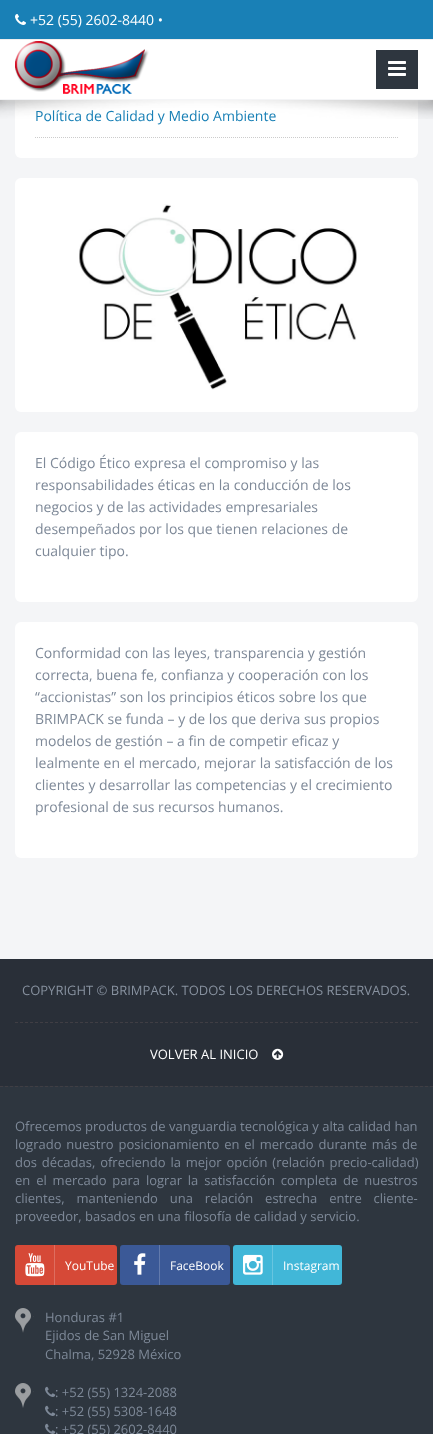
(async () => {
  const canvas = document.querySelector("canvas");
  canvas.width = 433;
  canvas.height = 1434;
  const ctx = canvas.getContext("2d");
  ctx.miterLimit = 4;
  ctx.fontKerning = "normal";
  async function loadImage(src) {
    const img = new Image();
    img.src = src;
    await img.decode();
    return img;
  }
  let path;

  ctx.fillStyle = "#2e363f";
  ctx.fillRect(0, 0, 433, 1434);
  ctx.fillStyle = "#f4f5f7";
  ctx.fillRect(0, 100, 433, 859);
  ctx.fillStyle = "#ffffff";
  ctx.beginPath();
  ctx.roundRect(15, -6, 403, 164, 6);
  ctx.fill();
  path = new Path2D("M35 137.5H398");
  ctx.strokeStyle = "#cccccc";
  ctx.setLineDash([1, 1]);
  ctx.stroke(path);
  ctx.beginPath();
  ctx.roundRect(15, 178, 403, 234, 6);
  ctx.fill();
  ctx.drawImage(await loadImage("img/5.png"), 79, 204, 278, 186);
  ctx.beginPath();
  ctx.roundRect(15, 432, 403, 170, 6);
  ctx.fill();
  ctx.beginPath();
  ctx.roundRect(15, 622, 403, 236, 6);
  ctx.fill();
  ctx.fillStyle = "#292f38";
  ctx.fillRect(0, 959, 433, 127);
  path = new Path2D("M15 1022.5H418");
  ctx.strokeStyle = "#403e44";
  ctx.setLineDash([3, 2]);
  ctx.stroke(path);
  ctx.drawImage(await loadImage("img/6.png"), 272, 1048, 12, 12);
  path = new Path2D("M0 1086.5H433");
  ctx.stroke(path);
  ctx.fillStyle = "#d64937";
  ctx.beginPath();
  ctx.roundRect(15, 1245, 102, 40, 3);
  ctx.fill();
  ctx.fillStyle = "#de6d5f";
  ctx.fillRect(54, 1245, 1, 40);
  ctx.drawImage(await loadImage("img/7.png"), 25, 1253, 20, 24);
  ctx.fillStyle = "#3b5997";
  ctx.beginPath();
  ctx.roundRect(120, 1245, 110, 40, 3);
  ctx.fill();
  ctx.fillStyle = "#627aac";
  ctx.fillRect(159, 1245, 1, 40);
  ctx.drawImage(await loadImage("img/8.png"), 134, 1253, 12, 22);
  ctx.fillStyle = "#41b7d8";
  ctx.beginPath();
  ctx.roundRect(233, 1245, 109, 40, 3);
  ctx.fill();
  ctx.fillStyle = "#67c5e0";
  ctx.fillRect(272, 1245, 1, 40);
  ctx.drawImage(await loadImage("img/9.png"), 243, 1254, 20, 21);
  ctx.drawImage(await loadImage("img/10.png"), 15, 1308, 19, 25);
  ctx.drawImage(await loadImage("img/11.png"), 15, 1383, 19, 25);
  ctx.drawImage(await loadImage("img/12.png"), 45, 1386, 11, 11);
  ctx.drawImage(await loadImage("img/12.png"), 45, 1405, 11, 11);
  ctx.drawImage(await loadImage("img/12.png"), 45, 1423, 11, 11);
  ctx.font = "14px Open Sans";
  ctx.fillStyle = "#1980b6";
  ctx.fillText("Política de Calidad y Medio Ambiente", 35, 121);
  ctx.drawImage(await loadImage("img/4.png"), 0, 100, 433, 19);
  ctx.fillStyle = "#eeeeee";
  ctx.filter = "blur(4px)";
  ctx.beginPath();
  ctx.rect(0, 40, 433, 60);
  ctx.fill();
  ctx.filter = "none";
  ctx.fillStyle = "#1980b6";
  ctx.fillRect(0, 0, 433, 39);
  ctx.drawImage(await loadImage("img/1.png"), 15, 14, 11, 11);
  ctx.fillStyle = "#ffffff";
  ctx.fillText("+52 (55) 2602-8440 •", 30, 25);
  for (const [x, y, w, h, color] of [
    [0, 39, 433, 1, "#eeeeee"],
    [0, 40, 433, 59, "#ffffff"],
    [376, 50, 42, 39, "#2e363f"],
  ]) {
    ctx.fillStyle = color;
    ctx.fillRect(x, y, w, h);
  }
  ctx.drawImage(await loadImage("img/3.png"), 388, 61, 18, 15);
  ctx.drawImage(await loadImage("img/2.png"), 15, 41, 134, 53);
  ctx.fillStyle = "#f4f5f7";
  ctx.fillRect(0, 99, 433, 1);
  ctx.fillStyle = "#7e8998";
  for (const [text, x, y] of [
    ["El Código Ético expresa el compromiso y las", 35, 468],
    ["responsabilidades éticas en la conducción de los", 35, 490],
    ["negocios y de las actividades empresariales", 35, 512],
    ["desempeñados por los que tienen relaciones de", 35, 534],
    ["cualquier tipo.", 35, 556],
    ["Conformidad con las leyes, transparencia y gestión", 35, 658],
    ["correcta, buena fe, confianza y cooperación con los", 35, 680],
    ["“accionistas” son los principios éticos sobre los que", 35, 702],
    ["BRIMPACK se funda – y de los que deriva sus propios", 35, 724],
    ["modelos de gestión – a fin de competir eficaz y", 35, 746],
    ["lealmente en el mercado, mejorar la satisfacción de los", 35, 768],
    ["clientes y desarrollar las competencias y el crecimiento", 35, 790],
    ["profesional de sus recursos humanos.", 35, 812],
  ]) {
    ctx.fillText(text, x, y);
  }
  ctx.font = "13px Open Sans";
  ctx.fillStyle = "#87919f";
  ctx.fillText("COPYRIGHT © BRIMPACK. TODOS LOS DERECHOS RESERVADOS.", 22, 995);
  ctx.fillStyle = "#ffffff";
  ctx.fillText("VOLVER AL INICIO", 150, 1059);
  ctx.fillStyle = "#7e8998";
  ctx.fillText("Ofrecemos productos de vanguardia tecnológica y alta calidad han", 15, 1131);
  ctx.wordSpacing = "1.5px";
  ctx.fillText("logrado nuestro posicionamiento en el mercado durante más de", 15, 1149);
  ctx.fillText("dos décadas, ofreciendo la mejor opción (relación precio-calidad)", 15, 1167);
  ctx.wordSpacing = "2.5px";
  ctx.fillText("en el mercado para lograr la satisfacción completa de nuestros", 15, 1185);
  ctx.wordSpacing = "8.5px";
  ctx.fillText("clientes, manteniendo una relación estrecha entre cliente-", 15, 1203);
  ctx.wordSpacing = "0px";
  ctx.fillText("proveedor, basados en una filosofía de calidad y servicio.", 15, 1221);
  ctx.font = "12px Open Sans";
  ctx.fillStyle = "#ffffff";
  for (const [text, x, y] of [
    ["YouTube", 65, 1270],
    ["FaceBook", 170, 1270],
    ["Instagram", 283, 1270],
  ]) {
    ctx.fillText(text, x, y);
  }
  ctx.font = "13px Open Sans";
  ctx.fillStyle = "#7e8998";
  for (const [text, x, y] of [
    ["Honduras #1", 45, 1322],
    ["Ejidos de San Miguel", 45, 1340],
    ["Chalma, 52928 México", 45, 1359],
    [": +52 (55) 1324-2088", 55, 1397],
    [": +52 (55) 5308-1648", 55, 1416],
    [": +52 (55) 2602-8440", 55, 1434],
  ]) {
    ctx.fillText(text, x, y);
  }
})();
